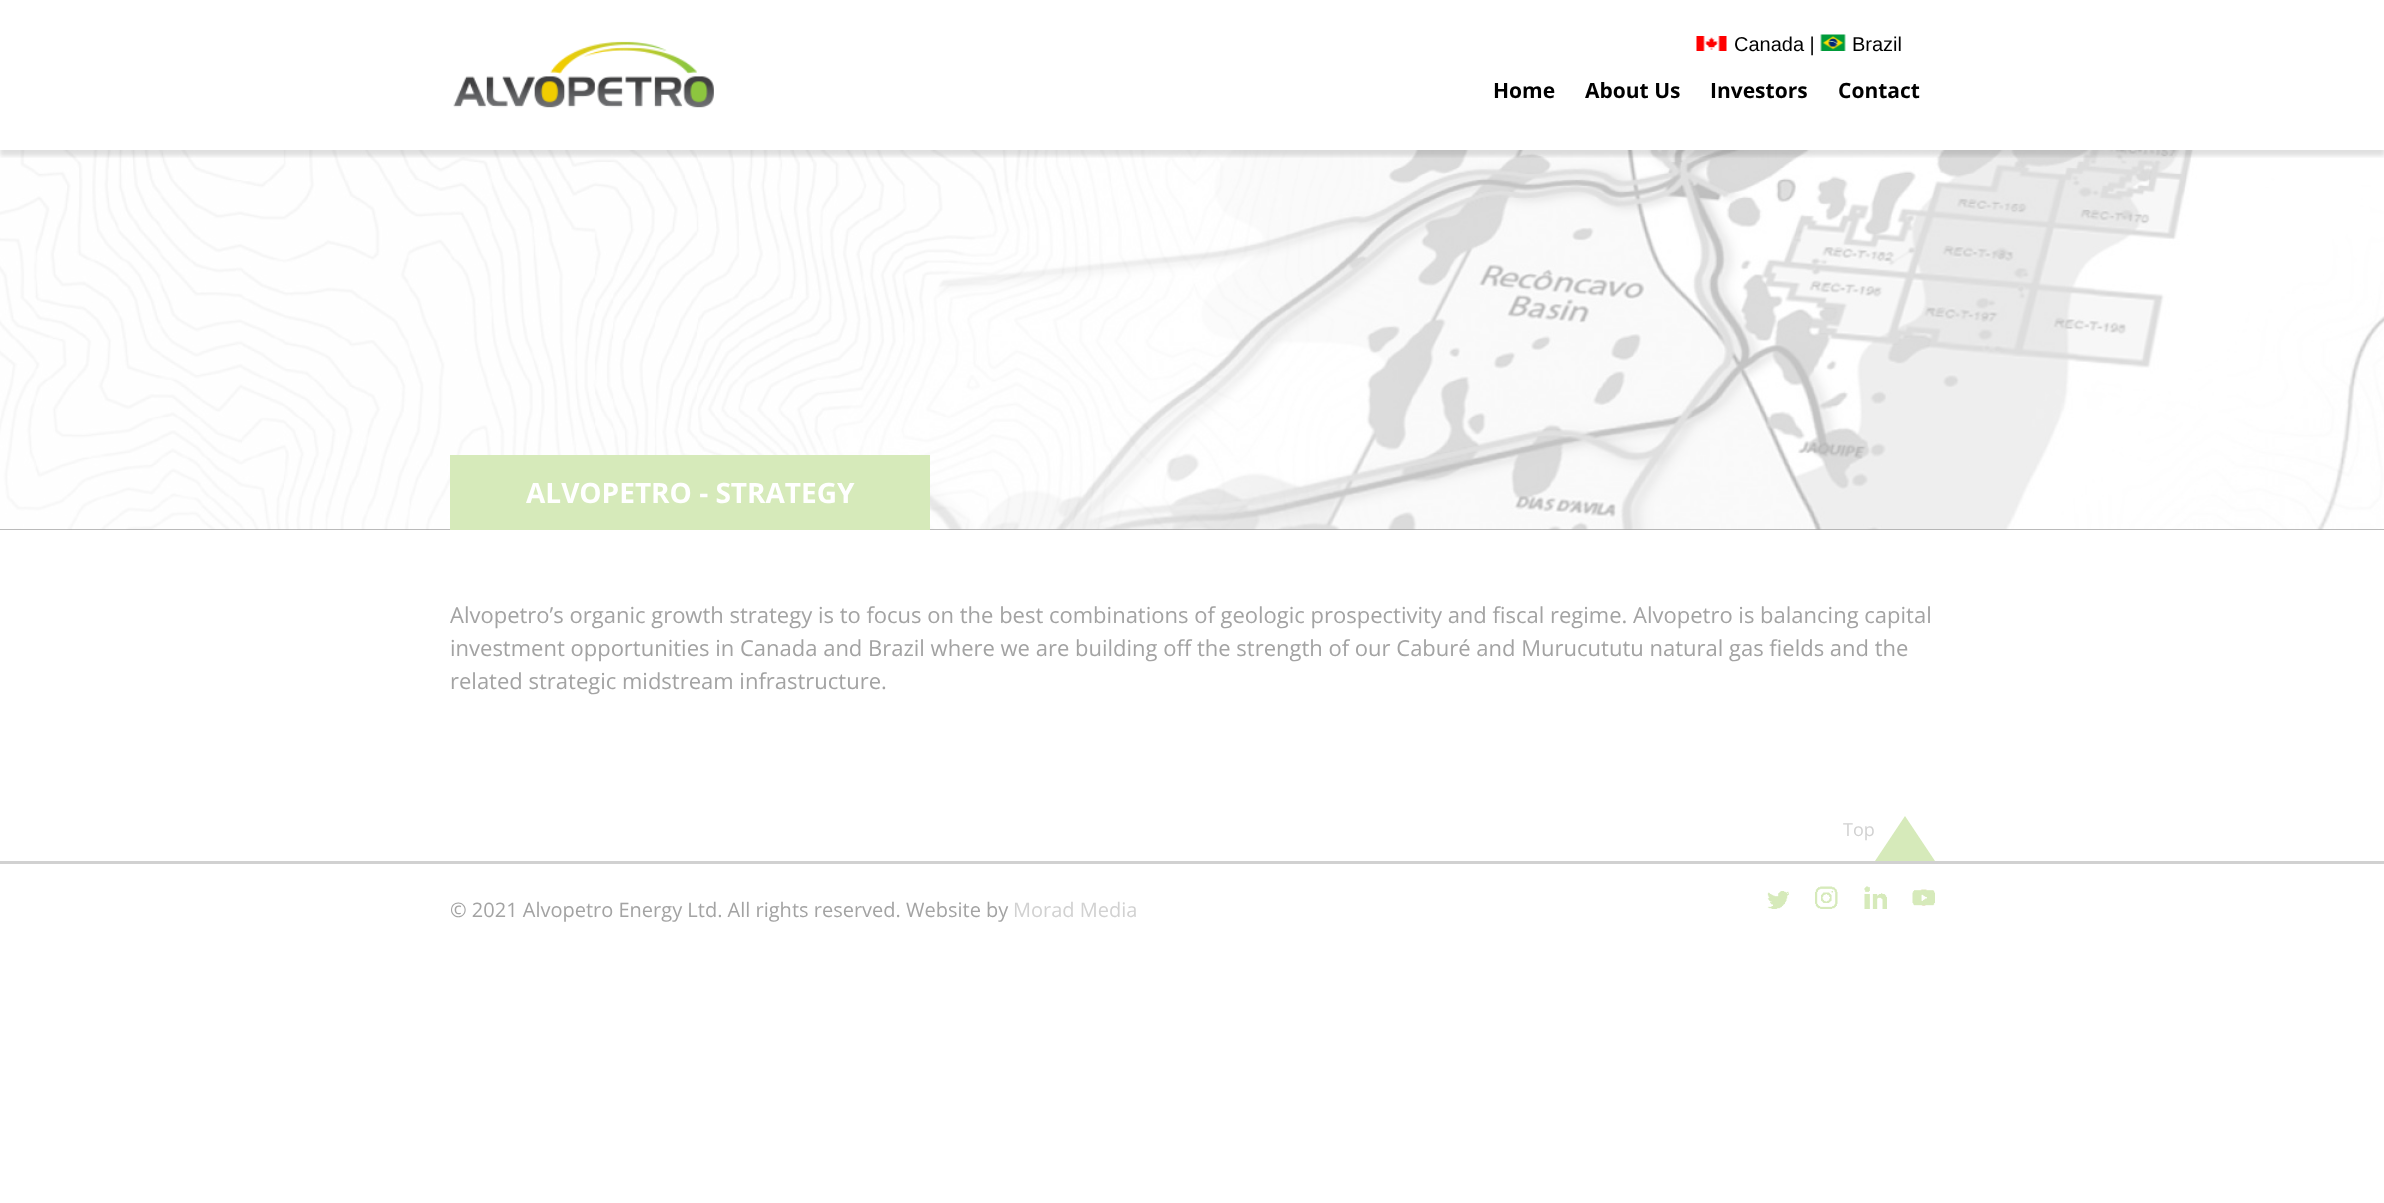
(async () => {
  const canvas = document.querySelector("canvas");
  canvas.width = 2384;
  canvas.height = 1203;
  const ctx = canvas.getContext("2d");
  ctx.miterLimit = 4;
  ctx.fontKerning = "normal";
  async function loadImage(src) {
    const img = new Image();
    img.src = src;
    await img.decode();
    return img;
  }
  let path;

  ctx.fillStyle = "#ffffff";
  ctx.fillRect(0, 0, 2384, 1203);
  ctx.fillStyle = "#a3a3a3";
  ctx.fillRect(0, 529, 2384, 1);
  ctx.drawImage(await loadImage("img/4.png"), 0, 150, 2384, 380);
  ctx.save();
  ctx.beginPath();
  ctx.rect(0, 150, 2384, 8);
  ctx.clip();
  ctx.fillStyle = "rgba(50, 50, 50, 0.15)";
  ctx.filter = "blur(2px)";
  ctx.beginPath();
  ctx.rect(0, 6, 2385, 150);
  ctx.fill();
  ctx.filter = "none";
  ctx.restore();
  ctx.drawImage(await loadImage("img/1.png"), 453, 41, 261, 67);
  ctx.drawImage(await loadImage("img/2.png"), 1696, 36, 31, 15);
  ctx.drawImage(await loadImage("img/3.png"), 1820, 34, 26, 17);
  ctx.fillStyle = "#d6eaba";
  ctx.fillRect(450, 455, 480, 75);
  path = new Path2D("M1935 861H1875L1905 816Z");
  ctx.fill(path);
  ctx.fillStyle = "#d1d1d1";
  ctx.fillRect(0, 861, 2384, 3);
  ctx.drawImage(await loadImage("img/5.png"), 1767, 891, 22, 18);
  ctx.drawImage(await loadImage("img/6.png"), 1815, 886, 23, 23);
  ctx.drawImage(await loadImage("img/7.png"), 1864, 886, 23, 23);
  ctx.drawImage(await loadImage("img/8.png"), 1912, 889, 23, 17);
  ctx.font = "20px Liberation Sans";
  ctx.fillStyle = "#000000";
  ctx.fillText("Canada |", 1734, 51);
  ctx.fillText("Brazil", 1852, 51);
  ctx.font = "bold 21px Open Sans";
  for (const [text, x, y] of [
    ["Home", 1493, 98],
    ["About Us", 1585, 98],
    ["Investors", 1710, 98],
    ["Contact", 1838, 98],
  ]) {
    ctx.fillText(text, x, y);
  }
  ctx.font = "bold 28px Open Sans";
  ctx.fillStyle = "#ffffff";
  ctx.fillText("ALVOPETRO - STRATEGY", 526, 503);
  ctx.font = "22px Open Sans";
  ctx.fillStyle = "#a3a3a3";
  for (const [text, x, y] of [
    ["Alvopetro’s organic growth strategy is to focus on the best combinations of geologic prospectivity and fiscal regime. Alvopetro is balancing capital", 450, 623],
    ["investment opportunities in Canada and Brazil where we are building off the strength of our Caburé and Murucututu natural gas fields and the", 450, 656],
    ["related strategic midstream infrastructure.", 450, 689],
  ]) {
    ctx.fillText(text, x, y);
  }
  ctx.font = "18px Open Sans";
  ctx.fillStyle = "#d1d1d1";
  ctx.fillText("Top", 1843, 836);
  ctx.font = "20px Open Sans";
  ctx.fillStyle = "#a3a3a3";
  ctx.fillText("© 2021 Alvopetro Energy Ltd. All rights reserved. Website by", 450, 917);
  ctx.fillStyle = "#d1d1d1";
  ctx.fillText("Morad Media", 1013, 917);
})();
